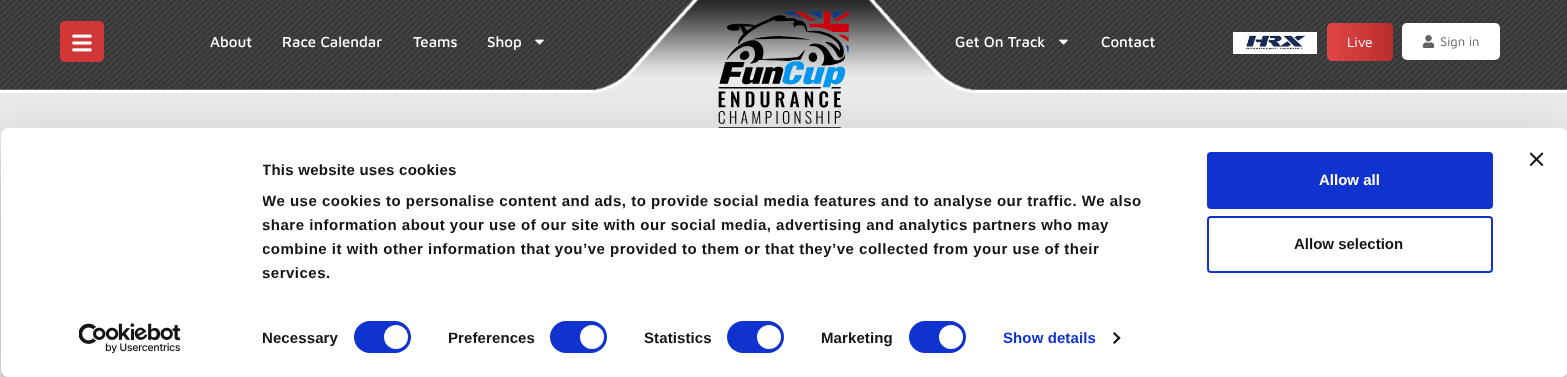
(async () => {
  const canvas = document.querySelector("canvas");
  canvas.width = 1567;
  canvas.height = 377;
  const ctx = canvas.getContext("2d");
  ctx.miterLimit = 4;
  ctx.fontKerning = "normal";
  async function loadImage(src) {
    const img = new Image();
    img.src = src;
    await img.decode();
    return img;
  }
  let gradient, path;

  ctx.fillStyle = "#ebebeb";
  ctx.fillRect(0, 0, 1567, 377);
  ctx.drawImage(await loadImage("img/1.png"), 0, 0, 1567, 93);
  ctx.fillStyle = "#d23737";
  ctx.beginPath();
  ctx.roundRect(60, 21, 44, 41, 5);
  ctx.fill();
  ctx.drawImage(await loadImage("img/2.png"), 72, 34, 20, 18);
  ctx.drawImage(await loadImage("img/3.png"), 535, 39, 9, 6);
  ctx.drawImage(await loadImage("img/4.png"), 718, 11, 131, 117);
  ctx.drawImage(await loadImage("img/5.png"), 1059, 39, 9, 6);
  ctx.drawImage(await loadImage("img/6.png"), 1233, 32, 84, 22);
  gradient = ctx.createLinearGradient(1327, 42, 1393, 42);
  gradient.addColorStop(0, "#e24646");
  gradient.addColorStop(1, "#b92d2d");
  ctx.fillStyle = gradient;
  ctx.beginPath();
  ctx.roundRect(1327, 23, 66, 38, 5);
  ctx.fill();
  ctx.fillStyle = "#ffffff";
  ctx.beginPath();
  ctx.roundRect(1402, 23, 98, 37, 5);
  ctx.fill();
  ctx.drawImage(await loadImage("img/7.png"), 1422, 35, 13, 13);
  ctx.save();
  path = new Path2D("M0 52H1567V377H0ZM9 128H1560C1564.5 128 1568 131.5 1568 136V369C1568 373.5 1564.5 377 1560 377H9C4.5 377 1 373.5 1 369V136C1 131.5 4.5 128 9 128Z");
  ctx.clip(path, "evenodd");
  ctx.fillStyle = "rgba(0, 0, 0, 0.3)";
  ctx.filter = "blur(35px)";
  ctx.beginPath();
  ctx.roundRect(1, 158, 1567, 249, 8);
  ctx.fill();
  ctx.filter = "none";
  ctx.restore();
  ctx.beginPath();
  ctx.roundRect(1, 128, 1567, 249, 8);
  ctx.fill();
  ctx.drawImage(await loadImage("img/8.png"), 1530, 152, 14, 14);
  ctx.fillStyle = "#1032cf";
  ctx.beginPath();
  ctx.roundRect(354, 321, 57, 32, 16);
  ctx.fill();
  ctx.fillStyle = "#ffffff";
  ctx.beginPath();
  ctx.arc(396, 337, 12, 0, Math.PI * 2);
  ctx.fill();
  ctx.fillStyle = "#1032cf";
  ctx.beginPath();
  ctx.roundRect(550, 321, 57, 32, 16);
  ctx.fill();
  ctx.fillStyle = "#ffffff";
  ctx.beginPath();
  ctx.arc(592, 337, 12, 0, Math.PI * 2);
  ctx.fill();
  ctx.fillStyle = "#1032cf";
  ctx.beginPath();
  ctx.roundRect(727, 321, 57, 32, 16);
  ctx.fill();
  ctx.fillStyle = "#ffffff";
  ctx.beginPath();
  ctx.arc(769, 337, 12, 0, Math.PI * 2);
  ctx.fill();
  ctx.fillStyle = "#1032cf";
  ctx.beginPath();
  ctx.roundRect(909, 321, 57, 32, 16);
  ctx.fill();
  ctx.fillStyle = "#ffffff";
  ctx.beginPath();
  ctx.arc(951, 337, 12, 0, Math.PI * 2);
  ctx.fill();
  ctx.fillStyle = "#141414";
  path = new Path2D("M1114.5 332L1120.5 338L1119 339.5L1113 333.5Z");
  ctx.fill(path);
  path = new Path2D("M1119 336.5L1120.5 338L1114.5 344L1113 342.5Z");
  ctx.fill(path);
  ctx.fillStyle = "#1032cf";
  ctx.beginPath();
  ctx.roundRect(1208, 153, 284, 55, 3);
  ctx.fill();
  ctx.strokeStyle = "#1032cf";
  ctx.lineWidth = 2;
  ctx.stroke();
  ctx.beginPath();
  ctx.roundRect(1208, 217, 284, 55, 3);
  ctx.stroke();
  ctx.drawImage(await loadImage("img/9.png"), 79, 323, 101, 30);
  ctx.font = "500 15px Maven Pro";
  ctx.fillStyle = "#ffffff";
  for (const [text, x, y] of [
    ["About", 210, 47],
    ["Race Calendar", 282, 47],
    ["Teams", 413, 47],
    ["Shop", 487, 47],
    ["Get On Track", 955, 47],
    ["Contact", 1101, 47],
  ]) {
    ctx.fillText(text, x, y);
  }
  ctx.font = "14px Maven Pro";
  ctx.fillText("Live", 1347, 47);
  ctx.font = "13px Maven Pro";
  ctx.fillStyle = "#626060";
  ctx.fillText("Sign in", 1440, 46);
  ctx.save();
  ctx.beginPath();
  ctx.rect(263, 158, 915, 127);
  ctx.clip();
  ctx.letterSpacing = "0.25px";
  ctx.font = "bold 15px Liberation Sans";
  ctx.fillStyle = "#141414";
  ctx.fillText("This website uses cookies", 262, 175);
  ctx.letterSpacing = "0.5px";
  ctx.fillText("We use cookies to personalise content and ads, to provide social media features and to analyse our traffic. We also", 262, 206);
  ctx.restore();
  ctx.letterSpacing = "0.5px";
  ctx.font = "bold 15px Liberation Sans";
  ctx.fillStyle = "#141414";
  ctx.fillText("share information about your use of our site with our social media, advertising and analytics partners who may", 262, 230);
  ctx.save();
  ctx.beginPath();
  ctx.rect(263, 158, 915, 127);
  ctx.clip();
  ctx.fillText("combine it with other information that you’ve provided to them or that they’ve collected from your use of their", 262, 254);
  ctx.restore();
  ctx.fillText("services.", 262, 278);
  ctx.letterSpacing = "0.1px";
  for (const [text, x, y] of [
    ["Necessary", 262, 343],
    ["Preferences", 448, 343],
    ["Statistics", 644, 343],
    ["Marketing", 821, 343],
  ]) {
    ctx.fillText(text, x, y);
  }
  ctx.fillStyle = "#1032cf";
  ctx.fillText("Show details", 1003, 343);
  ctx.letterSpacing = "0px";
  ctx.fillStyle = "#ffffff";
  ctx.fillText("Allow all", 1319, 185);
  ctx.fillStyle = "#141414";
  ctx.fillText("Allow selection", 1294, 249);
})();
